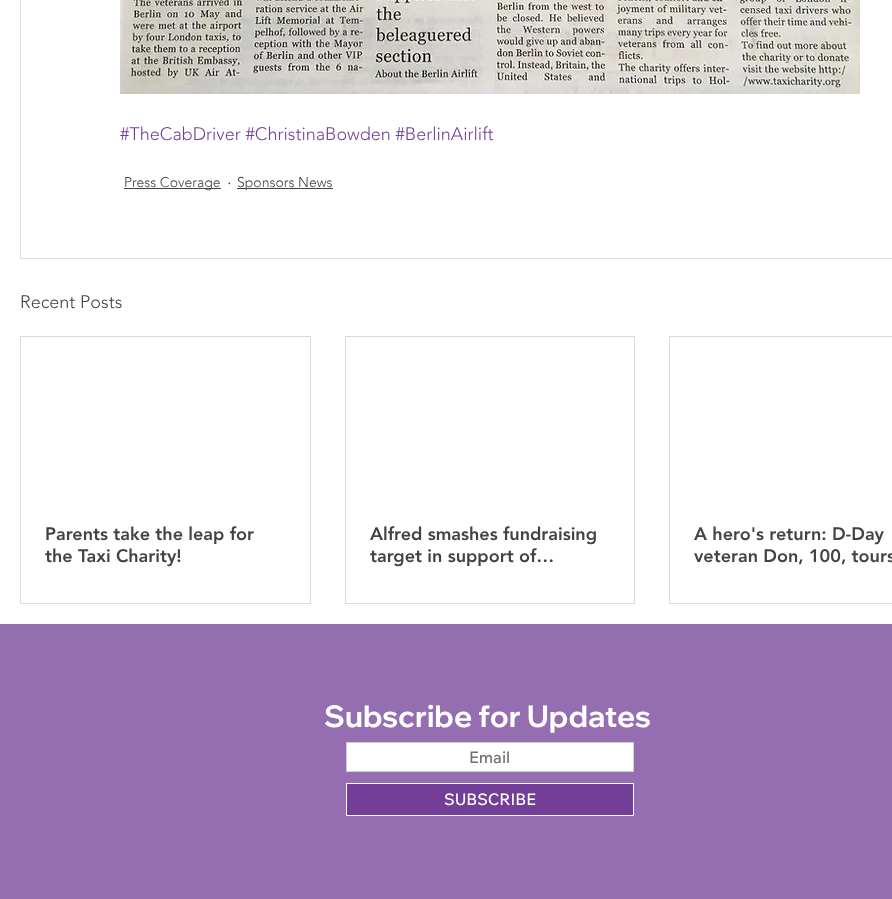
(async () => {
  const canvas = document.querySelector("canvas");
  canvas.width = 892;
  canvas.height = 899;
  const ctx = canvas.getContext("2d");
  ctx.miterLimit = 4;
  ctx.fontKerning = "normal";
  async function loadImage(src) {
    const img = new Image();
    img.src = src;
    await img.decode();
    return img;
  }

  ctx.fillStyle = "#ffffff";
  ctx.fillRect(0, 0, 892, 899);
  ctx.strokeStyle = "#dddada";
  ctx.strokeRect(20.5, -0.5, 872, 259);
  ctx.drawImage(await loadImage("img/1.png"), 120, 0, 740, 94);
  ctx.fillStyle = "#454242";
  ctx.fillRect(124, 188, 97, 1);
  ctx.fillRect(237, 188, 96, 1);
  ctx.strokeRect(20.5, 336.5, 290, 267);
  ctx.strokeRect(345.5, 336.5, 289, 267);
  ctx.strokeRect(669.5, 336.5, 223, 267);
  ctx.fillStyle = "#956eb2";
  ctx.fillRect(0, 624, 892, 275);
  ctx.fillStyle = "#ffffff";
  ctx.beginPath();
  ctx.rect(346.5, 742.5, 287, 29);
  ctx.fill();
  ctx.strokeStyle = "#d2cece";
  ctx.stroke();
  ctx.fillStyle = "#723e98";
  ctx.beginPath();
  ctx.rect(346.5, 783.5, 287, 32);
  ctx.fill();
  ctx.strokeStyle = "#ffffff";
  ctx.stroke();
  ctx.font = "300 18px 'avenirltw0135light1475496'";
  ctx.fillText("#TheCabDriver #ChristinaBowden #BerlinAirlift", 120, 140);
  ctx.font = "300 14px 'avenirltw0135light1475496'";
  ctx.fillStyle = "#454242";
  ctx.fillText("Press Coverage", 124, 187);
  ctx.font = "300 18px 'avenirltw0135light1475496'";
  ctx.fillText("·", 227, 189);
  ctx.font = "300 14px 'avenirltw0135light1475496'";
  ctx.fillText("Sponsors News", 237, 187);
  ctx.font = "300 18px 'avenirltw0135light1475496'";
  ctx.fillText("Recent Posts", 20, 308);
  ctx.font = "900 18px 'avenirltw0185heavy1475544'";
  for (const [text, x, y] of [
    ["Parents take the leap for", 45, 540],
    ["the Taxi Charity!", 45, 562],
    ["Alfred smashes fundraising", 370, 540],
    ["target in support of…", 370, 562],
    ["A hero's return: D-Day", 694, 540],
    ["veteran Don, 100, tours", 694, 562],
  ]) {
    ctx.fillText(text, x, y);
  }
  ctx.font = "bold 30px Wix Madefor Display";
  ctx.fillStyle = "#ffffff";
  ctx.fillText("Subscribe for Updates", 324, 727);
  ctx.font = "500 16px Wix Madefor Text";
  ctx.fillStyle = "#737070";
  ctx.fillText("Email", 469, 763);
  ctx.fillStyle = "#ffffff";
  ctx.fillText("SUBSCRIBE", 444, 805);
})();
